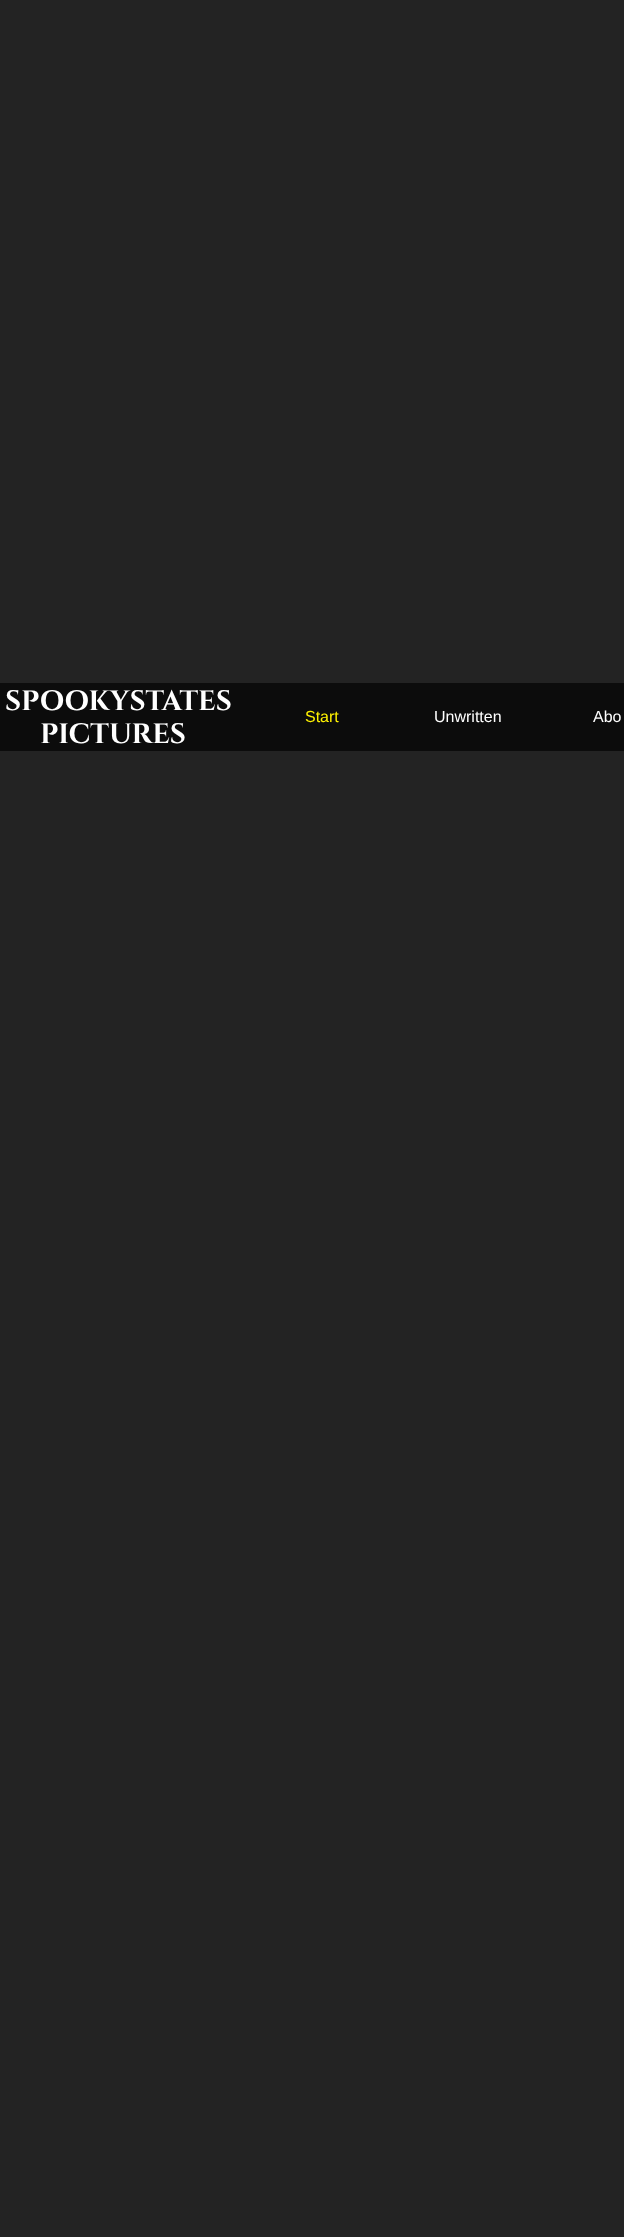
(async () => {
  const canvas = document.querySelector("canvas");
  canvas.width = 624;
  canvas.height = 2237;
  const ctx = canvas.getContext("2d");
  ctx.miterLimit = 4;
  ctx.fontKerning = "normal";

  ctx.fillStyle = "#232323";
  ctx.fillRect(0, 0, 624, 2237);
  ctx.fillStyle = "#0c0c0c";
  ctx.fillRect(0, 683, 624, 68);
  ctx.font = "bold 28px Cinzel";
  ctx.fillStyle = "#ffffff";
  ctx.fillText("SPOOKYSTATES", 5, 710);
  ctx.fillText("PICTURES", 40, 743);
  ctx.font = "16px Liberation Sans";
  ctx.fillStyle = "#fff200";
  ctx.fillText("Start", 305, 722);
  ctx.fillStyle = "#ffffff";
  ctx.fillText("Unwritten", 434, 722);
  ctx.fillText("Abo", 593, 722);
})();
